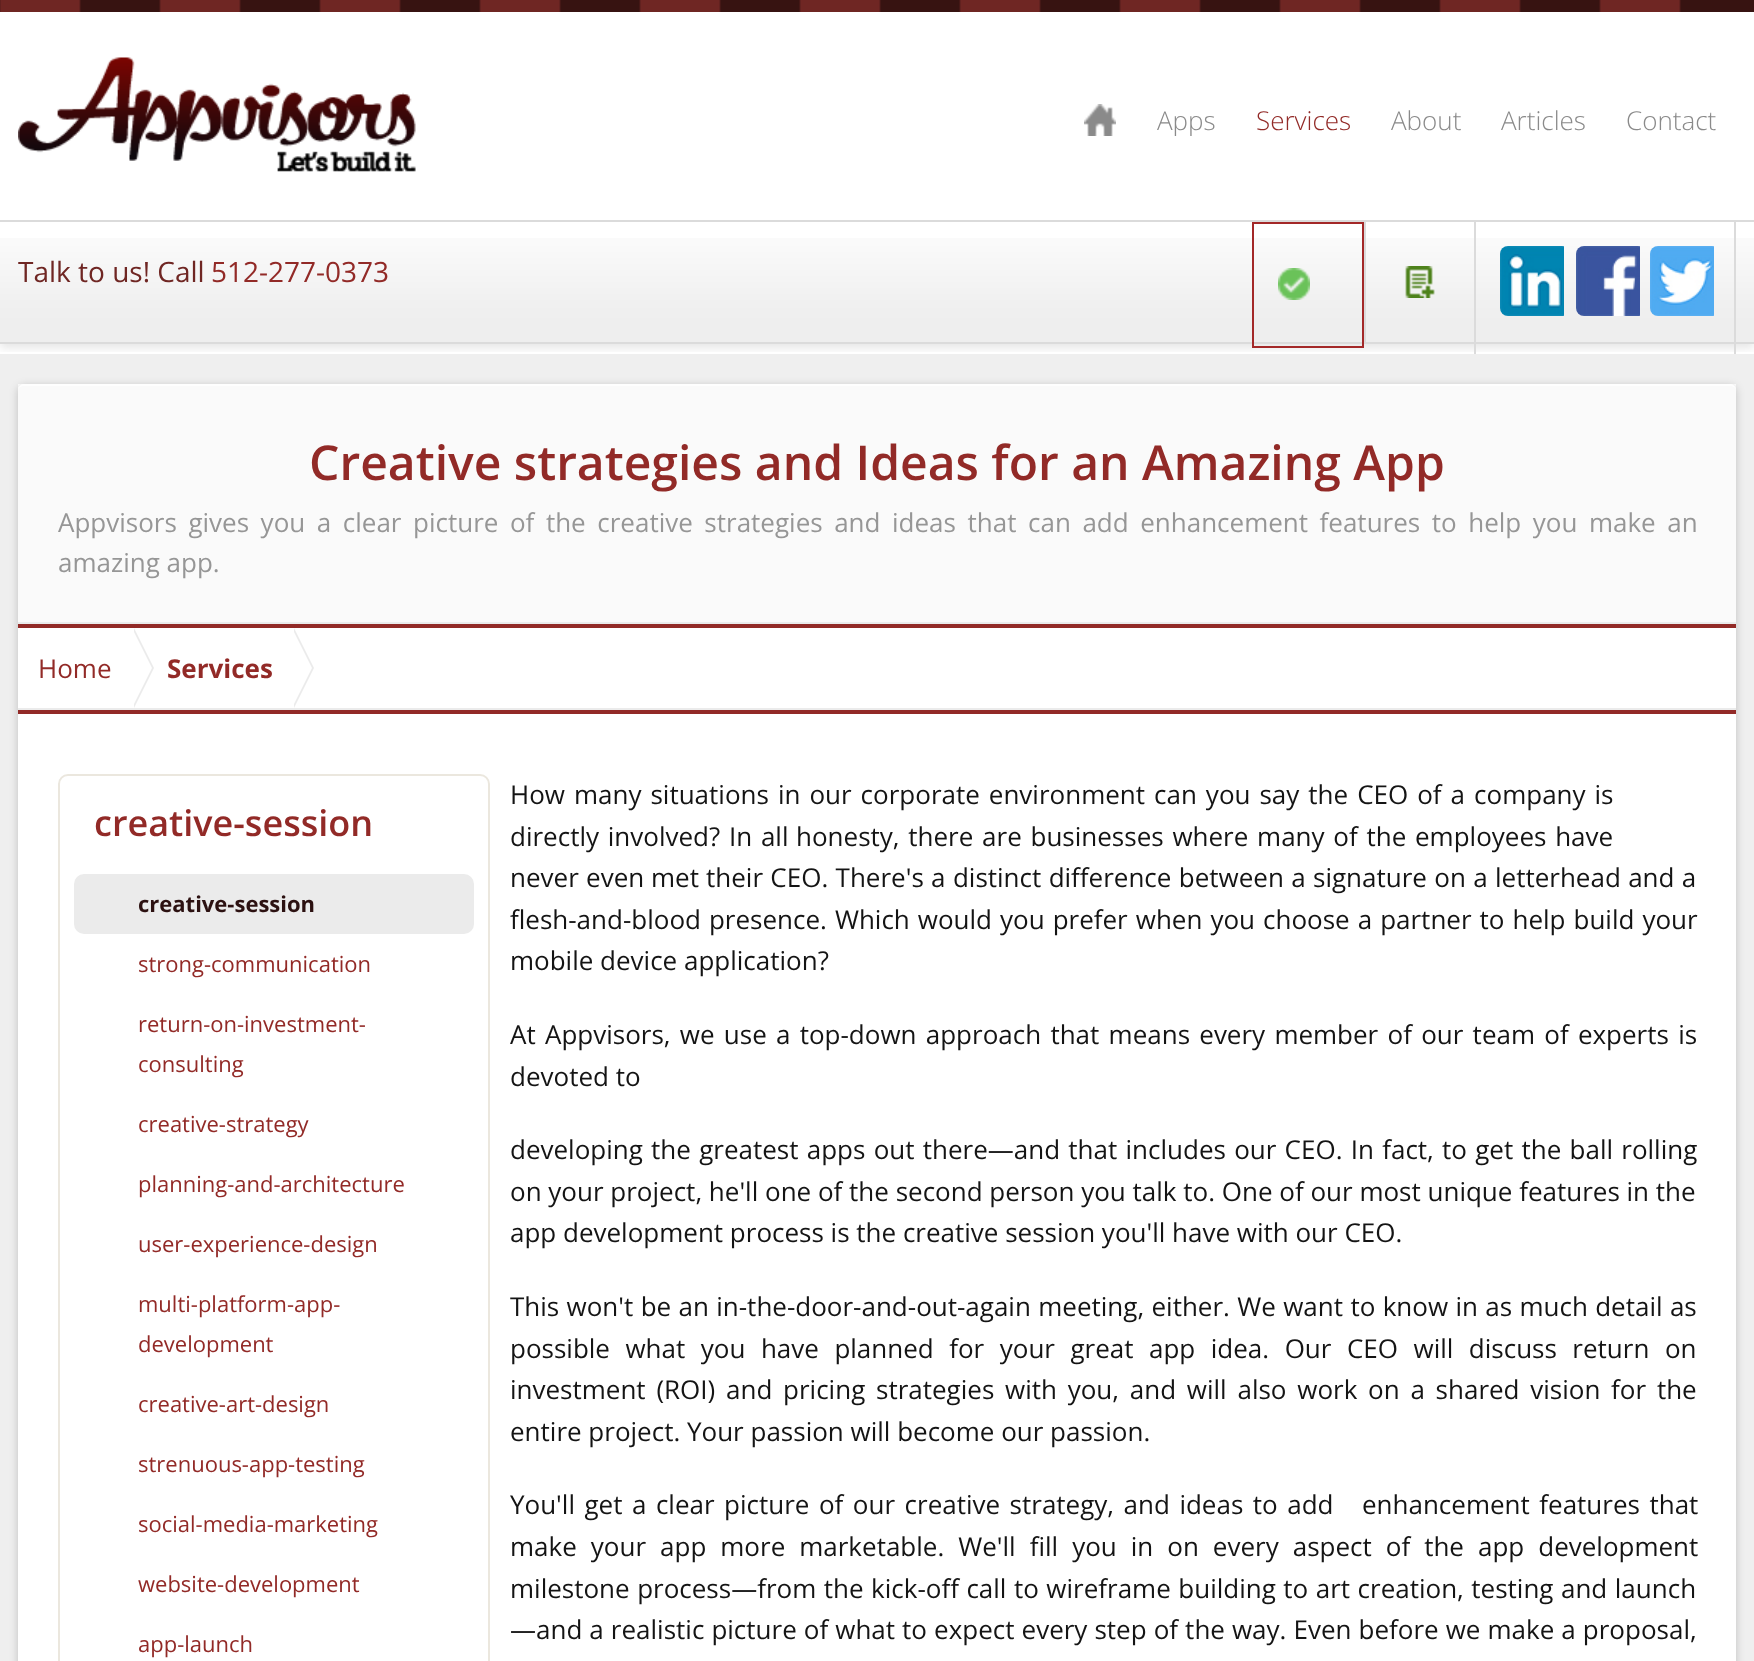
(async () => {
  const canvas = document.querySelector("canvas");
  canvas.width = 1754;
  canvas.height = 1661;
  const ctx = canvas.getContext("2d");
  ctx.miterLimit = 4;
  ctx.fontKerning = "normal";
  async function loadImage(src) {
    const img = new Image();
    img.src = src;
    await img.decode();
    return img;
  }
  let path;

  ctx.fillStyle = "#efefef";
  ctx.fillRect(0, 0, 1754, 1661);
  ctx.fillStyle = "#ffffff";
  ctx.fillRect(0, 12, 1754, 342);
  ctx.drawImage(await loadImage("img/1.png"), 0, 0, 1754, 12);
  ctx.drawImage(await loadImage("img/2.png"), 18, 57, 398, 115);
  ctx.drawImage(await loadImage("img/3.png"), 1084, 104, 32, 32);
  ctx.save();
  ctx.beginPath();
  ctx.rect(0, 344, 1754, 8);
  ctx.clip();
  ctx.fillStyle = "rgba(0, 0, 0, 0.1)";
  ctx.filter = "blur(5px)";
  ctx.beginPath();
  ctx.rect(0, 224, 1754, 124);
  ctx.fill();
  ctx.filter = "none";
  ctx.restore();
  ctx.drawImage(await loadImage("img/4.png"), 0, 238, 1754, 104);
  for (const [x, y, w, h, color] of [
    [0, 220, 1754, 2, "#dbdbdb"],
    [0, 342, 1754, 2, "#dbdbdb"],
    [1734, 222, 2, 132, "#dbdbdb"],
  ]) {
    ctx.fillStyle = color;
    ctx.fillRect(x, y, w, h);
  }
  ctx.strokeStyle = "#a32828";
  ctx.lineWidth = 2;
  ctx.strokeRect(1253, 223, 110, 124);
  ctx.drawImage(await loadImage("img/5.png"), 1278, 268, 32, 32);
  ctx.fillRect(1364, 222, 2, 122);
  ctx.drawImage(await loadImage("img/6.png"), 1405, 266, 30, 32);
  ctx.fillRect(1474, 222, 2, 132);
  ctx.drawImage(await loadImage("img/7.png"), 1500, 246, 64, 70);
  ctx.drawImage(await loadImage("img/8.png"), 1576, 246, 64, 70);
  ctx.drawImage(await loadImage("img/9.png"), 1650, 246, 64, 70);
  ctx.fillStyle = "#ffffff";
  ctx.fillRect(18, 384, 1718, 6);
  ctx.fillStyle = "rgba(0, 0, 0, 0.2)";
  ctx.filter = "blur(4px)";
  ctx.beginPath();
  ctx.roundRect(18, 386, 1718, 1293, 6);
  ctx.fill();
  ctx.filter = "none";
  ctx.fillStyle = "#ffffff";
  ctx.beginPath();
  ctx.roundRect(18, 384, 1718, 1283, 6);
  ctx.fill();
  ctx.fillStyle = "#fafafa";
  ctx.beginPath();
  ctx.roundRect(18, 384, 1718, 240, [6, 6, 0, 0]);
  ctx.fill();
  ctx.fillStyle = "#fefefe";
  path = new Path2D("M24 384C21 384 18 387 18 390C18 388 21 386 24 386H1730C1733 386 1736 388 1736 390C1736 387 1733 384 1730 384Z");
  ctx.fill(path);
  for (const [x, y, w, h, color] of [
    [18, 622, 1718, 2, "#ebebeb"],
    [18, 624, 1718, 4, "#922a27"],
    [18, 710, 1718, 4, "#922a27"],
    [18, 708, 1718, 2, "#ebebeb"],
  ]) {
    ctx.fillStyle = color;
    ctx.fillRect(x, y, w, h);
  }
  path = new Path2D("M134 708V628L154 668Z");
  ctx.fill(path);
  ctx.fillStyle = "#ffffff";
  path = new Path2D("M132 708V628L152 668Z");
  ctx.fill(path);
  ctx.fillStyle = "#ebebeb";
  path = new Path2D("M294 708V628L314 668Z");
  ctx.fill(path);
  ctx.fillStyle = "#ffffff";
  path = new Path2D("M292 708V628L312 668Z");
  ctx.fill(path);
  ctx.beginPath();
  ctx.roundRect(59, 775, 430, 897, 9);
  ctx.strokeStyle = "#ebe7de";
  ctx.stroke();
  ctx.fillStyle = "#ebebeb";
  ctx.beginPath();
  ctx.roundRect(74, 874, 400, 60, 10);
  ctx.fill();
  ctx.font = "300 26px Open Sans";
  ctx.fillStyle = "#8a8a8a";
  ctx.fillText("Apps", 1157, 130);
  ctx.fillStyle = "#922a27";
  ctx.fillText("Services", 1256, 130);
  ctx.fillStyle = "#8a8a8a";
  for (const [text, x, y] of [
    ["About", 1391, 130],
    ["Articles", 1501, 130],
    ["Contact", 1626, 130],
  ]) {
    ctx.fillText(text, x, y);
  }
  ctx.font = "28px Open Sans";
  ctx.fillStyle = "#6f2623";
  ctx.fillText("Talk to us! Call", 18, 282);
  ctx.fillStyle = "#922a27";
  ctx.fillText("512-277-0373", 211, 282);
  ctx.font = "600 48px Open Sans";
  ctx.fillText("Creative strategies and Ideas for an Amazing App", 309, 480);
  ctx.wordSpacing = "4.8px";
  ctx.font = "26px Open Sans";
  ctx.fillStyle = "#969696";
  ctx.fillText("Appvisors gives you a clear picture of the creative strategies and ideas that can add enhancement features to help you make an", 58, 532);
  ctx.wordSpacing = "0px";
  ctx.fillText("amazing app.", 58, 572);
  ctx.fillStyle = "#922a27";
  ctx.fillText("Home", 38, 678);
  ctx.font = "bold 26px Open Sans";
  ctx.fillText("Services", 167, 678);
  ctx.font = "600 36px Open Sans";
  ctx.fillText("creative-session", 94, 836);
  ctx.font = "bold 22px Open Sans";
  ctx.fillStyle = "#2c1111";
  ctx.fillText("creative-session", 138, 912);
  ctx.font = "22px Open Sans";
  ctx.fillStyle = "#922a27";
  for (const [text, x, y] of [
    ["strong-communication", 138, 972],
    ["return-on-investment-", 138, 1032],
    ["consulting", 138, 1072],
    ["creative-strategy", 138, 1132],
    ["planning-and-architecture", 138, 1192],
    ["user-experience-design", 138, 1252],
    ["multi-platform-app-", 138, 1312],
    ["development", 138, 1352],
    ["creative-art-design", 138, 1412],
    ["strenuous-app-testing", 138, 1472],
    ["social-media-marketing", 138, 1532],
    ["website-development", 138, 1592],
    ["app-launch", 138, 1652],
  ]) {
    ctx.fillText(text, x, y);
  }
  ctx.wordSpacing = "2.25px";
  ctx.font = "26px Open Sans";
  ctx.fillStyle = "#141414";
  ctx.fillText("How many situations in our corporate environment can you say the CEO of a company is", 510, 804);
  ctx.wordSpacing = "2px";
  ctx.fillText("directly involved? In all", 510, 846);
  ctx.fillText("honesty, there are businesses where many of the employees have", 796, 846);
  ctx.wordSpacing = "0.6px";
  ctx.fillText("never even", 510, 887);
  ctx.wordSpacing = "0px";
  ctx.fillText("met", 651, 887);
  ctx.wordSpacing = "0.6px";
  ctx.fillText("their CEO. There's a distinct difference between a signature on a letterhead and a", 706, 887);
  ctx.wordSpacing = "1.25px";
  ctx.fillText("flesh-and-blood presence. Which would you prefer when you choose a partner to help build your", 510, 929);
  ctx.wordSpacing = "0px";
  ctx.fillText("mobile device application?", 510, 970);
  ctx.wordSpacing = "2.5px";
  ctx.fillText("At Appvisors, we use a top-down approach that means every member of our team of experts is", 510, 1044);
  ctx.wordSpacing = "0px";
  ctx.fillText("devoted to", 510, 1086);
  ctx.wordSpacing = "1.5px";
  ctx.fillText("developing the greatest apps out there—and that includes our CEO. In fact, to get the ball rolling", 510, 1159);
  ctx.wordSpacing = "0px";
  ctx.fillText("on your project, he'll one of the second person you talk to. One of our most unique features in the", 510, 1201);
  ctx.fillText("app development process is the creative session you'll have with our CEO.", 510, 1242);
  ctx.wordSpacing = "0.6px";
  ctx.fillText("This won't be an in-the-door-and-out-again meeting, either. We want to know in as much detail as", 510, 1316);
  ctx.wordSpacing = "8.75px";
  ctx.fillText("possible what you have planned for your great app idea. Our CEO will discuss return on", 510, 1358);
  ctx.wordSpacing = "4px";
  ctx.fillText("investment (ROI) and pricing strategies with you, and will also work on a shared vision for the", 510, 1399);
  ctx.wordSpacing = "0px";
  ctx.fillText("entire project. Your passion will become our passion.", 510, 1441);
  ctx.wordSpacing = "2.75px";
  ctx.fillText("You'll get a clear picture of our creative strategy, and ideas to add   enhancement features that", 510, 1514);
  ctx.wordSpacing = "7.25px";
  ctx.fillText("make your app more marketable. We'll fill you in on every aspect of the app development", 510, 1556);
  ctx.wordSpacing = "0.75px";
  ctx.fillText("milestone process—from the kick-off call to wireframe building to art creation, testing and launch", 510, 1598);
  ctx.wordSpacing = "0.3px";
  ctx.fillText("—and a realistic picture of what to expect every step of the way. Even before we make a proposal,", 510, 1639);
})();
